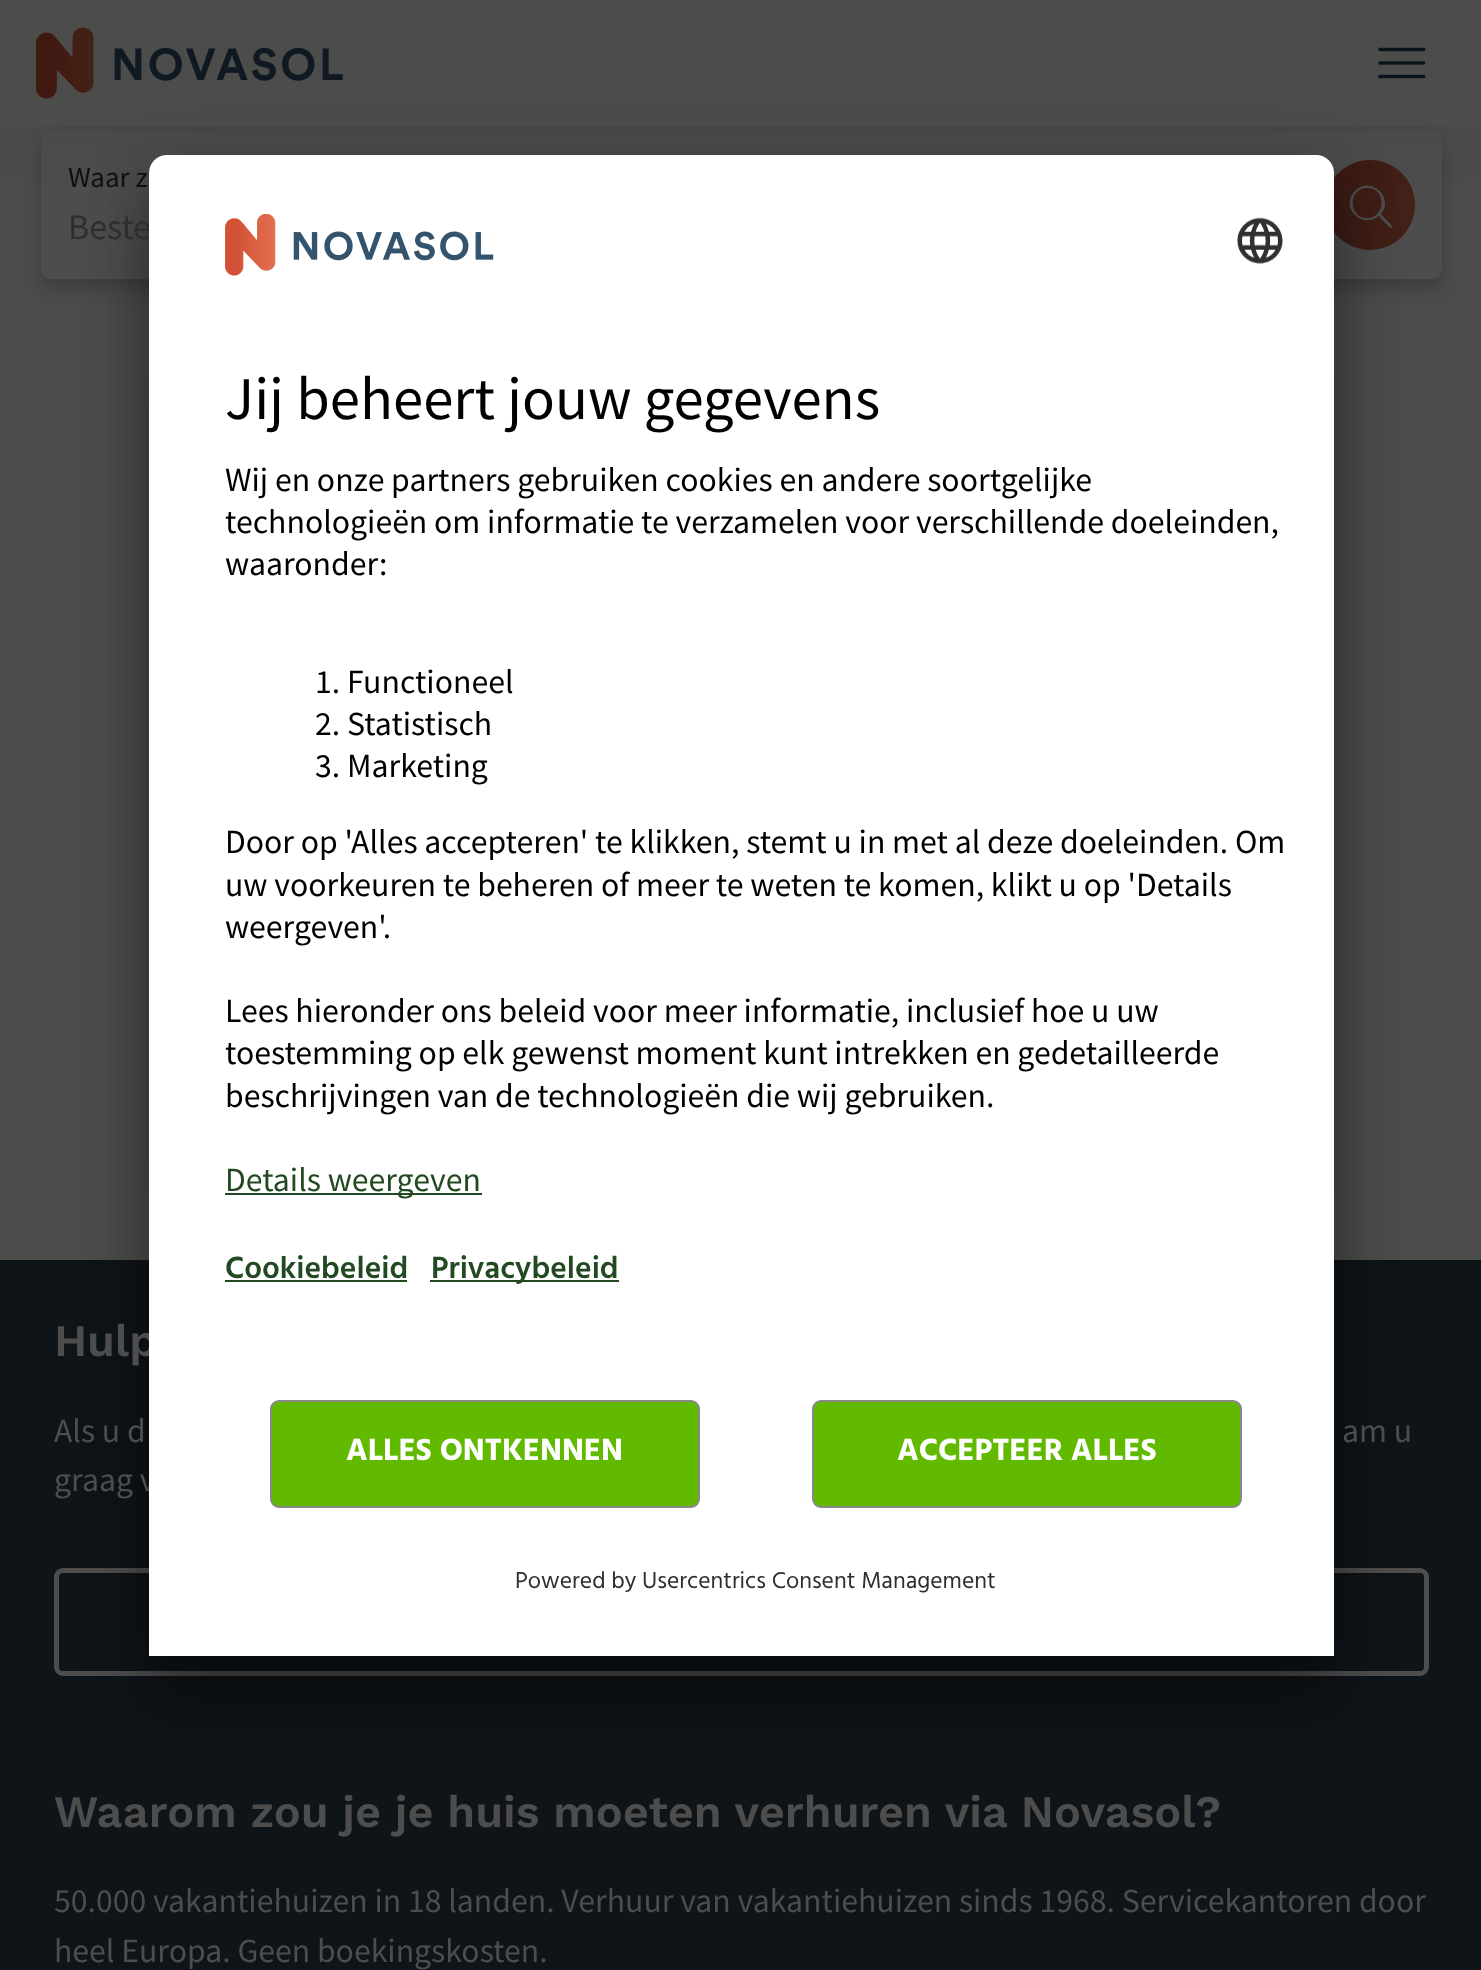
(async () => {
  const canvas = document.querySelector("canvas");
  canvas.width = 1481;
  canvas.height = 1970;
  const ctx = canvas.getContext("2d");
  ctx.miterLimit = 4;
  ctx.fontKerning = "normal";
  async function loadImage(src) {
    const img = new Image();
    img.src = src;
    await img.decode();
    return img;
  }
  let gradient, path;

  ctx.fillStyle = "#4c4c4b";
  ctx.fillRect(0, 0, 1481, 1970);
  ctx.fillStyle = "rgba(0, 0, 0, 0.2)";
  ctx.filter = "blur(9px)";
  ctx.beginPath();
  ctx.roundRect(41, 140, 1401, 148, 9);
  ctx.fill();
  ctx.filter = "none";
  ctx.fillStyle = "#4d4d4d";
  ctx.beginPath();
  ctx.roundRect(41, 131, 1401, 148, 9);
  ctx.fill();
  gradient = ctx.createLinearGradient(1325, 205, 1415, 205);
  gradient.addColorStop(0, "#3a1a14");
  gradient.addColorStop(1, "#442218");
  ctx.fillStyle = gradient;
  ctx.beginPath();
  ctx.arc(1370, 205, 45, 0, Math.PI * 2);
  ctx.fill();
  ctx.fillStyle = "#4d4d4d";
  path = new Path2D("M1391 228C1390 228 1380 218 1379 216C1362 230 1339 207 1355 191C1370 175 1395 197 1381 214C1387 221 1396 228 1391 228ZM1367 188C1348 188 1348 218 1367 218C1386 218 1387 188 1367 188Z");
  ctx.fill(path);
  ctx.fillStyle = "rgba(0, 0, 0, 0.2)";
  ctx.filter = "blur(54px)";
  ctx.beginPath();
  ctx.rect(0, -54, 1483, 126);
  ctx.fill();
  ctx.filter = "none";
  ctx.fillStyle = "#4c4c4b";
  ctx.fillRect(0, 0, 1481, 126);
  ctx.drawImage(await loadImage("img/1.png"), 36, 27, 307, 72);
  ctx.drawImage(await loadImage("img/2.png"), 1378, 47, 48, 32);
  ctx.fillStyle = "rgba(0, 0, 0, 0.2)";
  ctx.filter = "blur(13.5px)";
  ctx.beginPath();
  ctx.roundRect(164, 383, 1155, 801, 18);
  ctx.fill();
  ctx.filter = "none";
  ctx.fillStyle = "#0f1418";
  ctx.fillRect(0, 1260, 1481, 710);
  ctx.beginPath();
  ctx.roundRect(56.5, 1570.5, 1370, 103, 6.5);
  ctx.strokeStyle = "#4d4d4d";
  ctx.lineWidth = 5;
  ctx.stroke();
  ctx.fillStyle = "rgba(0, 0, 0, 0.3)";
  ctx.filter = "blur(31.5px)";
  ctx.beginPath();
  ctx.roundRect(149, 200, 1185, 1501, 18);
  ctx.fill();
  ctx.filter = "none";
  ctx.fillStyle = "rgba(0, 0, 0, 0.22)";
  ctx.filter = "blur(29px)";
  ctx.beginPath();
  ctx.roundRect(149, 167, 1185, 1500, 18);
  ctx.fill();
  ctx.filter = "none";
  ctx.font = "29px Source Sans Pro";
  ctx.fillStyle = "#0f0f0f";
  ctx.fillText("Waar z", 68, 187);
  ctx.font = "36px Source Sans Pro";
  ctx.fillStyle = "#2e2e2e";
  ctx.fillText("Beste", 68, 239);
  ctx.font = "600 45px Work Sans";
  ctx.fillStyle = "#4d4d4d";
  ctx.fillText("Hulp", 54, 1356);
  ctx.font = "33.75px Source Sans Pro";
  for (const [text, x, y] of [
    ["Als u d", 54, 1442],
    ["am u", 1342, 1442],
    ["graag v", 54, 1491],
  ]) {
    ctx.fillText(text, x, y);
  }
  ctx.font = "600 45px Work Sans";
  ctx.fillText("Waarom zou je je huis moeten verhuren via Novasol?", 54, 1827);
  ctx.font = "33.75px Source Sans Pro";
  ctx.fillText("50.000 vakantiehuizen in 18 landen. Verhuur van vakantiehuizen sinds 1968. Servicekantoren door", 54, 1912);
  ctx.fillText("heel Europa. Geen boekingskosten.", 54, 1962);
  ctx.fillStyle = "#ffffff";
  ctx.beginPath();
  ctx.roundRect(149, 155, 1185, 1501, [18, 18, 0, 0]);
  ctx.fill();
  ctx.drawImage(await loadImage("img/3.png"), 225, 214, 269, 62);
  ctx.drawImage(await loadImage("img/4.png"), 1237, 217, 46, 47);
  ctx.font = "60.75px Source Sans Pro";
  ctx.fillStyle = "#000000";
  ctx.fillText("Jij beheert jouw gegevens", 225, 419);
  ctx.font = "33.75px Source Sans Pro";
  for (const [text, x, y] of [
    ["Wij en onze partners gebruiken cookies en andere soortgelijke", 225, 491],
    ["technologieën om informatie te verzamelen voor verschillende doeleinden,", 225, 533],
    ["waaronder:", 225, 575],
    ["1. Functioneel", 315, 693],
    ["2. Statistisch", 315, 735],
    ["3. Marketing", 315, 777],
    ["Door op 'Alles accepteren' te klikken, stemt u in met al deze doeleinden. Om", 225, 853],
    ["uw voorkeuren te beheren of meer te weten te komen, klikt u op 'Details", 225, 896],
    ["weergeven'.", 225, 938],
    ["Lees hieronder ons beleid voor meer informatie, inclusief hoe u uw", 225, 1022],
    ["toestemming op elk gewenst moment kunt intrekken en gedetailleerde", 225, 1064],
    ["beschrijvingen van de technologieën die wij gebruiken.", 225, 1107],
  ]) {
    ctx.fillText(text, x, y);
  }
  ctx.fillStyle = "#234923";
  ctx.fillRect(225, 1193, 257, 2);
  ctx.fillText("Details weergeven", 225, 1191);
  ctx.font = "600 31.5px Hind";
  ctx.fillText("Cookiebeleid", 225, 1278);
  ctx.fillRect(225, 1280, 182, 2);
  ctx.fillRect(430, 1280, 189, 2);
  ctx.fillText("Privacybeleid", 431, 1278);
  ctx.fillStyle = "#61ba00";
  ctx.beginPath();
  ctx.roundRect(271, 1401, 428, 106, 8);
  ctx.fill();
  ctx.strokeStyle = "#888888";
  ctx.lineWidth = 2;
  ctx.stroke();
  ctx.font = "bold 31.5px Hind";
  ctx.fillStyle = "#ffffff";
  ctx.fillText("ALLES ONTKENNEN", 346, 1460);
  ctx.fillStyle = "#61ba00";
  ctx.beginPath();
  ctx.roundRect(813, 1401, 428, 106, 8);
  ctx.fill();
  ctx.stroke();
  ctx.fillStyle = "#ffffff";
  ctx.fillText("ACCEPTEER ALLES", 897, 1460);
  ctx.font = "23.6px Hind";
  ctx.fillStyle = "#2e2e2e";
  ctx.fillText("Powered by Usercentrics Consent Management", 515, 1588);
})();
